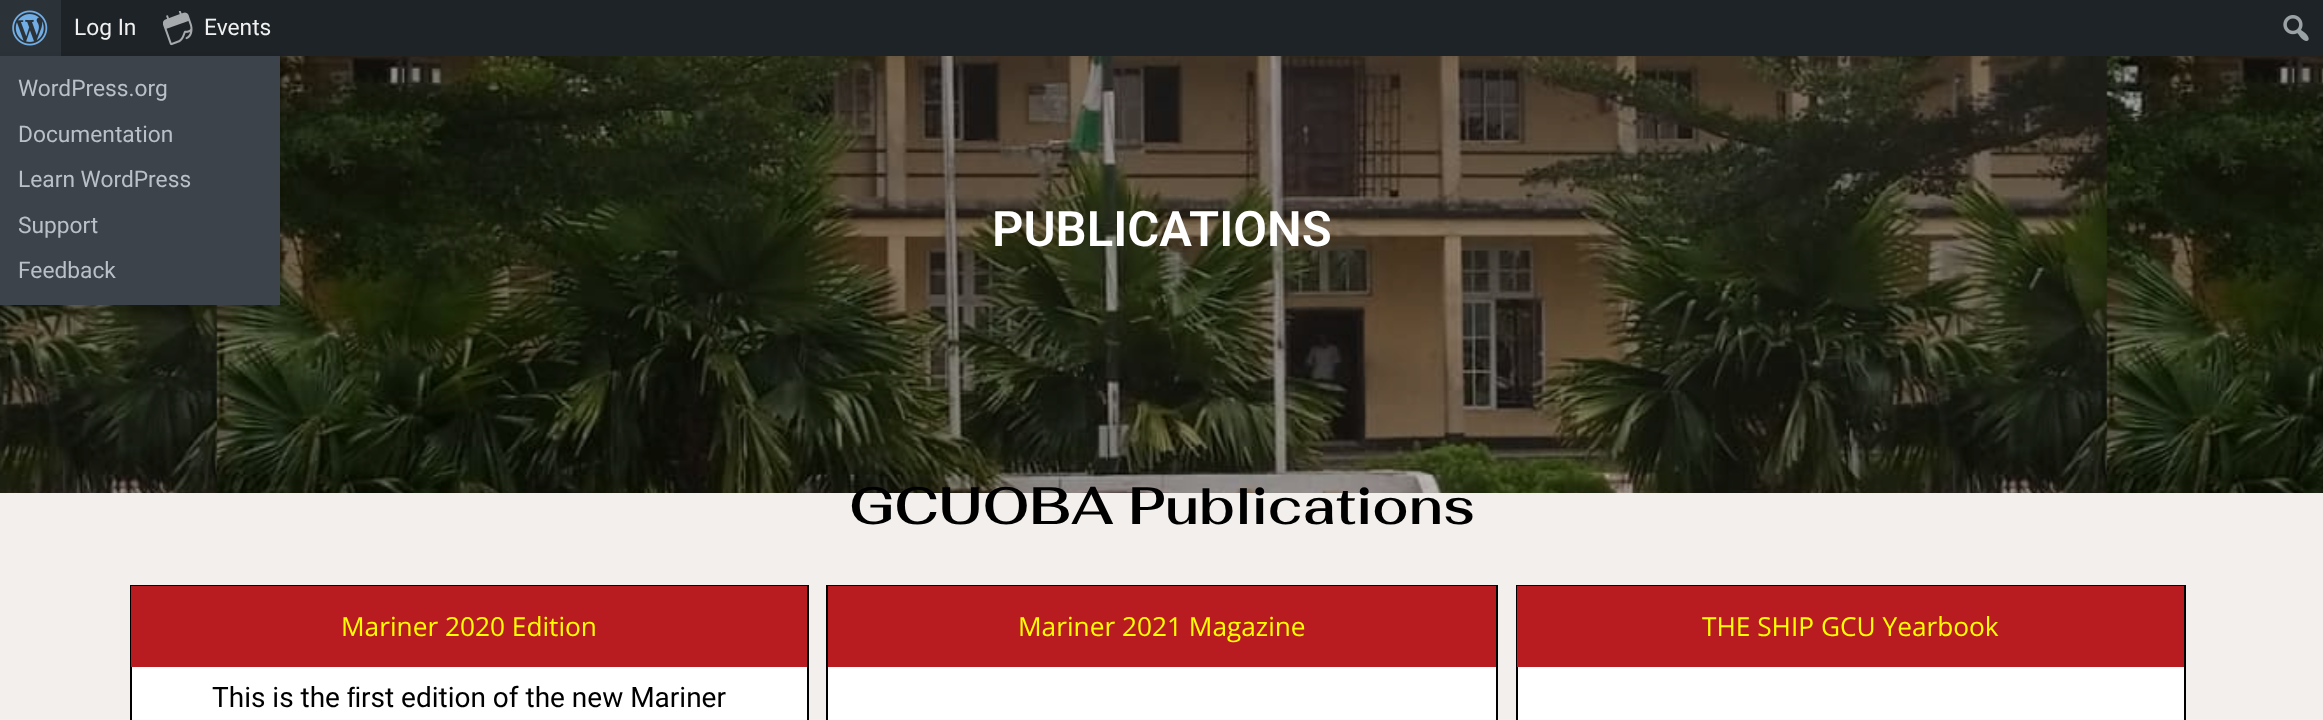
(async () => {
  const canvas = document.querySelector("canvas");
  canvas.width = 2323;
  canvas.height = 720;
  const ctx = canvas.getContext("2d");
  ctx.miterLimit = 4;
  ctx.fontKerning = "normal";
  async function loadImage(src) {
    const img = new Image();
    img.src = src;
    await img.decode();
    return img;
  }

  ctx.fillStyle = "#f2efec";
  ctx.fillRect(0, 0, 2323, 720);
  ctx.fillStyle = "#1d2327";
  ctx.fillRect(61, 0, 2262, 56);
  ctx.drawImage(await loadImage("img/1.png"), 163, 11, 30, 35);
  ctx.fillStyle = "#2c3338";
  ctx.fillRect(0, 0, 61, 56);
  ctx.drawImage(await loadImage("img/2.png"), 12, 10, 36, 36);
  ctx.drawImage(await loadImage("img/4.png"), 0, 56, 2323, 437);
  ctx.fillStyle = "rgba(0, 0, 0, 0.2)";
  ctx.filter = "blur(4.5px)";
  ctx.beginPath();
  ctx.rect(0, 61, 280, 249);
  ctx.fill();
  ctx.filter = "none";
  ctx.fillStyle = "#3c434a";
  ctx.fillRect(0, 56, 280, 249);
  ctx.drawImage(await loadImage("img/3.png"), 2283, 15, 26, 26);
  ctx.fillStyle = "#ffffff";
  ctx.fillRect(132, 667, 675, 53);
  ctx.strokeStyle = "#000000";
  ctx.lineWidth = 2;
  ctx.strokeRect(131, 586, 677, 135);
  ctx.fillStyle = "#b81c20";
  ctx.fillRect(131, 586, 676, 81);
  ctx.fillStyle = "#ffffff";
  ctx.fillRect(828, 667, 668, 53);
  ctx.strokeRect(827, 586, 670, 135);
  ctx.fillStyle = "#b81c20";
  ctx.fillRect(828, 586, 668, 81);
  ctx.fillStyle = "#ffffff";
  ctx.fillRect(1518, 667, 666, 53);
  ctx.strokeRect(1517, 586, 668, 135);
  ctx.fillStyle = "#b81c20";
  ctx.fillRect(1517, 586, 667, 81);
  ctx.font = "22.75px Roboto";
  ctx.fillStyle = "#f0f0f1";
  ctx.fillText("Log In", 74, 35);
  ctx.fillText("Events", 204, 35);
  ctx.fillStyle = "#bac0c7";
  for (const [text, x, y] of [
    ["WordPress.org", 18, 96],
    ["Documentation", 18, 142],
    ["Learn WordPress", 18, 187],
    ["Support", 18, 233],
    ["Feedback", 18, 278],
  ]) {
    ctx.fillText(text, x, y);
  }
  ctx.font = "600 49px Roboto";
  ctx.fillStyle = "#ffffff";
  ctx.fillText("PUBLICATIONS", 992, 246);
  ctx.font = "600 52.5px Fahkwang";
  ctx.fillStyle = "#000000";
  ctx.fillText("GCUOBA Publications", 849, 524);
  ctx.font = "26.25px Open Sans";
  ctx.fillStyle = "#ffff00";
  ctx.fillText("Mariner 2020 Edition", 341, 636);
  ctx.font = "28px Roboto";
  ctx.fillStyle = "#000000";
  ctx.fillText("This is the", 212, 707);
  ctx.font = "28px Liberation Sans";
  ctx.fillText("ﬁ", 347, 707);
  ctx.font = "28px Roboto";
  ctx.fillText("rst edition of the new Mariner", 361, 707);
  ctx.font = "26.25px Open Sans";
  ctx.fillStyle = "#ffff00";
  ctx.fillText("Mariner 2021 Magazine", 1018, 636);
  ctx.fillText("THE SHIP GCU Yearbook", 1702, 636);
})();
